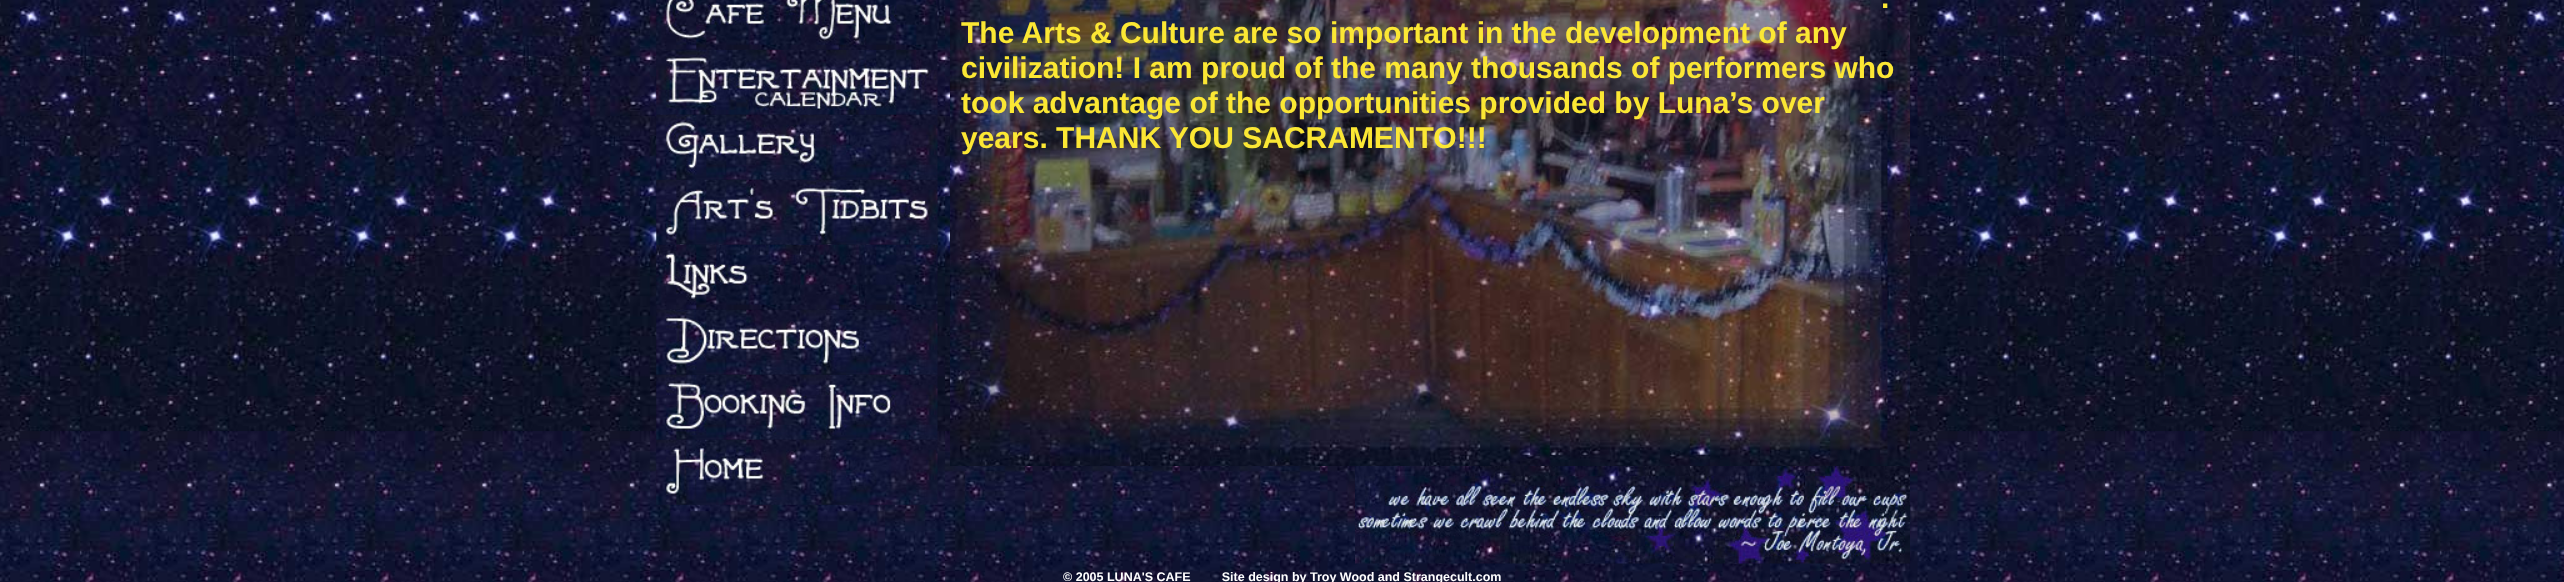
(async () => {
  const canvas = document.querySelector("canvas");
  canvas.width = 2564;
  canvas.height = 582;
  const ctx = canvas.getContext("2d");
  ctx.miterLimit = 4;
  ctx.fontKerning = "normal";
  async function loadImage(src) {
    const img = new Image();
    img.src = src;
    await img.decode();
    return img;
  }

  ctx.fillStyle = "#ffffff";
  ctx.fillRect(0, 0, 2564, 582);
  ctx.drawImage(await loadImage("img/1.png"), 0, 0, 2564, 582);
  ctx.drawImage(await loadImage("img/2.png"), 656, 0, 282, 50);
  ctx.drawImage(await loadImage("img/3.png"), 656, 49, 282, 66);
  ctx.drawImage(await loadImage("img/4.png"), 656, 114, 282, 66);
  ctx.drawImage(await loadImage("img/5.png"), 656, 179, 282, 66);
  ctx.drawImage(await loadImage("img/6.png"), 656, 244, 282, 66);
  ctx.drawImage(await loadImage("img/7.png"), 656, 309, 282, 66);
  ctx.drawImage(await loadImage("img/8.png"), 656, 374, 282, 66);
  ctx.drawImage(await loadImage("img/9.png"), 656, 439, 282, 66);
  ctx.drawImage(await loadImage("img/10.png"), 950, 0, 960, 466);
  ctx.drawImage(await loadImage("img/11.png"), 1355, 466, 555, 98);
  ctx.font = "bold 30px Liberation Sans";
  ctx.fillStyle = "#fbe734";
  for (const [text, x, y] of [
    [".", 1881, 8],
    ["The Arts & Culture are so important in the development of any", 961, 43],
    ["civilization! I am proud of the many thousands of performers who", 961, 78],
    ["took advantage of the opportunities provided by Luna’s over", 961, 113],
    ["years. THANK YOU SACRAMENTO!!!", 961, 148],
  ]) {
    ctx.fillText(text, x, y);
  }
  ctx.font = "bold 12.5px Liberation Sans";
  ctx.fillStyle = "#ffffff";
  ctx.fillText("© 2005 LUNA'S CAFE         Site design by Troy Wood and Strangecult.com", 1063, 581);
})();
